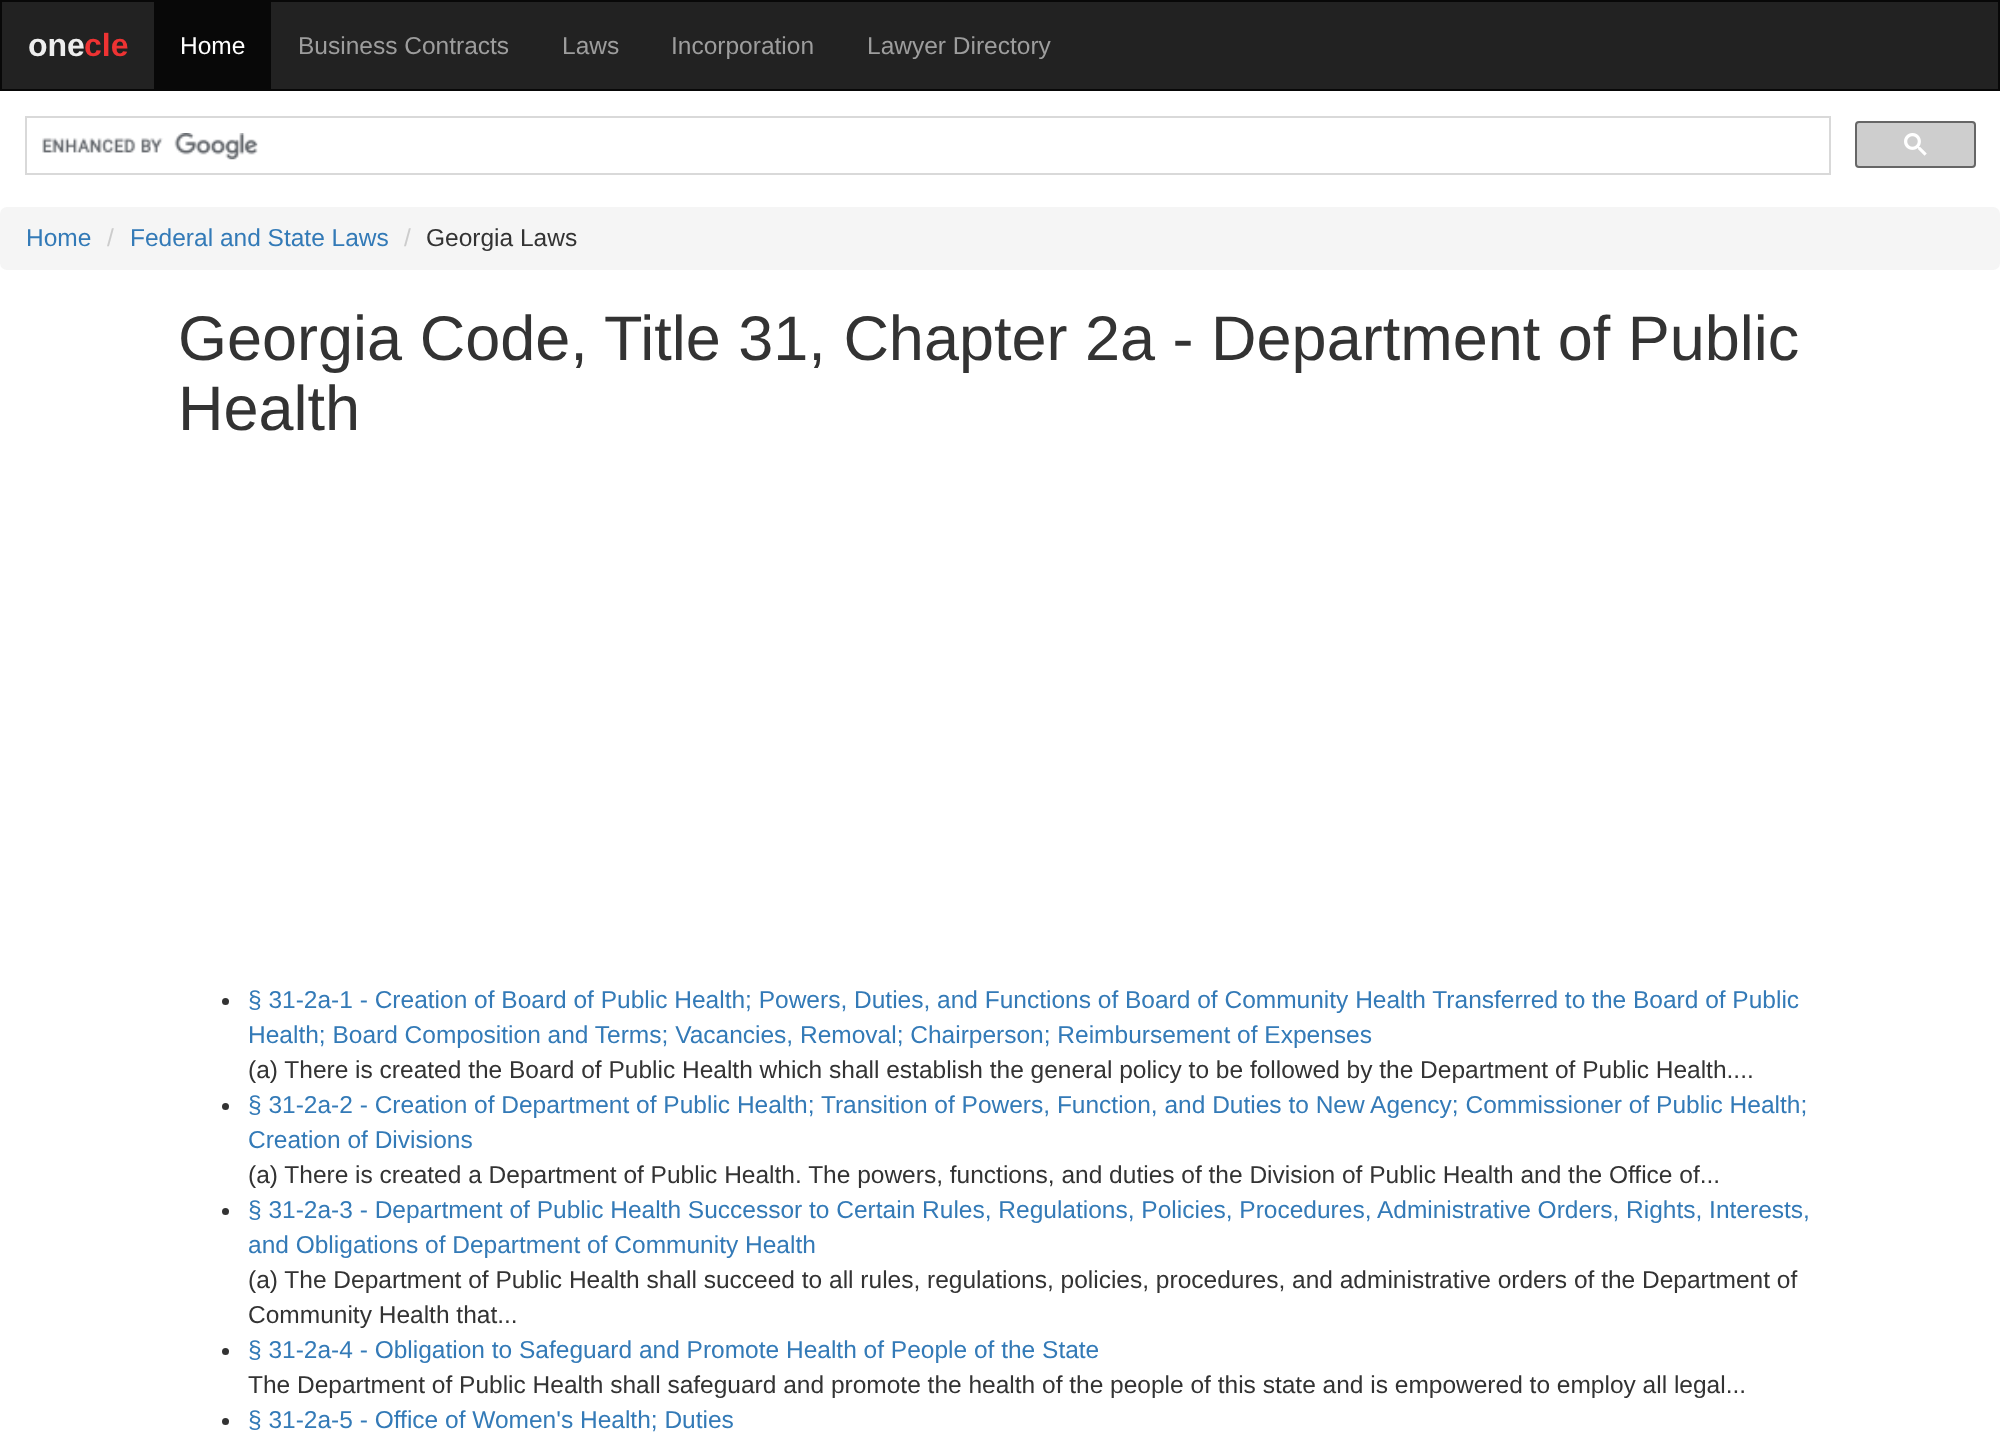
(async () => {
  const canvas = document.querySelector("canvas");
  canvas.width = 2000;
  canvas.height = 1436;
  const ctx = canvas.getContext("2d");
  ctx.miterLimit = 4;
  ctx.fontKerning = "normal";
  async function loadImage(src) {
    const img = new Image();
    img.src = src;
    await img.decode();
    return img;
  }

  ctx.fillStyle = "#ffffff";
  ctx.fillRect(0, 0, 2000, 1436);
  ctx.fillStyle = "#222222";
  ctx.beginPath();
  ctx.rect(1, 1, 1998, 89);
  ctx.fill();
  ctx.strokeStyle = "#080808";
  ctx.lineWidth = 2;
  ctx.stroke();
  ctx.fillStyle = "#080808";
  ctx.fillRect(154, 2, 117, 87);
  ctx.strokeStyle = "#d9d9d9";
  ctx.strokeRect(26, 117, 1804, 57);
  ctx.drawImage(await loadImage("img/1.png"), 42, 133, 216, 27);
  ctx.fillStyle = "#cecece";
  ctx.beginPath();
  ctx.roundRect(1856, 122, 119, 45, 3);
  ctx.fill();
  ctx.strokeStyle = "#666666";
  ctx.stroke();
  ctx.drawImage(await loadImage("img/2.png"), 1904, 133, 23, 23);
  ctx.fillStyle = "#f5f5f5";
  ctx.beginPath();
  ctx.roundRect(0, 207, 2000, 63, 7);
  ctx.fill();
  ctx.fillStyle = "#333333";
  ctx.beginPath();
  ctx.arc(225.5, 1001.5, 3.5, 0, Math.PI * 2);
  ctx.fill();
  ctx.beginPath();
  ctx.arc(225.5, 1106.5, 3.5, 0, Math.PI * 2);
  ctx.fill();
  ctx.beginPath();
  ctx.arc(225.5, 1211.5, 3.5, 0, Math.PI * 2);
  ctx.fill();
  ctx.beginPath();
  ctx.arc(225.5, 1351.5, 3.5, 0, Math.PI * 2);
  ctx.fill();
  ctx.beginPath();
  ctx.arc(225.5, 1421.5, 3.5, 0, Math.PI * 2);
  ctx.fill();
  ctx.font = "bold 32px Liberation Sans";
  ctx.fillStyle = "#eeeeee";
  ctx.fillText("one", 28, 56);
  ctx.fillStyle = "#ee3333";
  ctx.fillText("cle", 84, 56);
  ctx.font = "24.5px Liberation Sans";
  ctx.fillStyle = "#ffffff";
  ctx.fillText("Home", 180, 54);
  ctx.fillStyle = "#9d9d9d";
  for (const [text, x, y] of [
    ["Business Contracts", 298, 54],
    ["Laws", 562, 54],
    ["Incorporation", 671, 54],
    ["Lawyer Directory", 867, 54],
  ]) {
    ctx.fillText(text, x, y);
  }
  ctx.fillStyle = "#337ab7";
  ctx.fillText("Home", 26, 246);
  ctx.fillStyle = "#cccccc";
  ctx.fillText("/", 107, 246);
  ctx.fillStyle = "#337ab7";
  ctx.fillText("Federal and State Laws", 130, 246);
  ctx.fillStyle = "#cccccc";
  ctx.fillText("/", 404, 246);
  ctx.fillStyle = "#333333";
  ctx.fillText("Georgia Laws", 426, 246);
  ctx.font = "63px Liberation Sans";
  ctx.fillText("Georgia Code, Title 31, Chapter 2a - Department of Public", 178, 360);
  ctx.fillText("Health", 178, 430);
  ctx.font = "24.5px Liberation Sans";
  ctx.fillStyle = "#337ab7";
  ctx.fillText("§ 31-2a-1 - Creation of Board of Public Health; Powers, Duties, and Functions of Board of Community Health Transferred to the Board of Public", 248, 1008);
  ctx.fillText("Health; Board Composition and Terms; Vacancies, Removal; Chairperson; Reimbursement of Expenses", 248, 1043);
  ctx.fillStyle = "#333333";
  ctx.fillText("(a) There is created the Board of Public Health which shall establish the general policy to be followed by the Department of Public Health....", 248, 1078);
  ctx.fillStyle = "#337ab7";
  ctx.fillText("§ 31-2a-2 - Creation of Department of Public Health; Transition of Powers, Function, and Duties to New Agency; Commissioner of Public Health;", 248, 1113);
  ctx.fillText("Creation of Divisions", 248, 1148);
  ctx.fillStyle = "#333333";
  ctx.fillText("(a) There is created a Department of Public Health. The powers, functions, and duties of the Division of Public Health and the Office of...", 248, 1183);
  ctx.fillStyle = "#337ab7";
  ctx.fillText("§ 31-2a-3 - Department of Public Health Successor to Certain Rules, Regulations, Policies, Procedures, Administrative Orders, Rights, Interests,", 248, 1218);
  ctx.fillText("and Obligations of Department of Community Health", 248, 1253);
  ctx.fillStyle = "#333333";
  ctx.fillText("(a) The Department of Public Health shall succeed to all rules, regulations, policies, procedures, and administrative orders of the Department of", 248, 1288);
  ctx.fillText("Community Health that...", 248, 1323);
  ctx.fillStyle = "#337ab7";
  ctx.fillText("§ 31-2a-4 - Obligation to Safeguard and Promote Health of People of the State", 248, 1358);
  ctx.fillStyle = "#333333";
  ctx.fillText("The Department of Public Health shall safeguard and promote the health of the people of this state and is empowered to employ all legal...", 248, 1393);
  ctx.fillStyle = "#337ab7";
  ctx.fillText("§ 31-2a-5 - Office of Women's Health; Duties", 248, 1428);
})();
